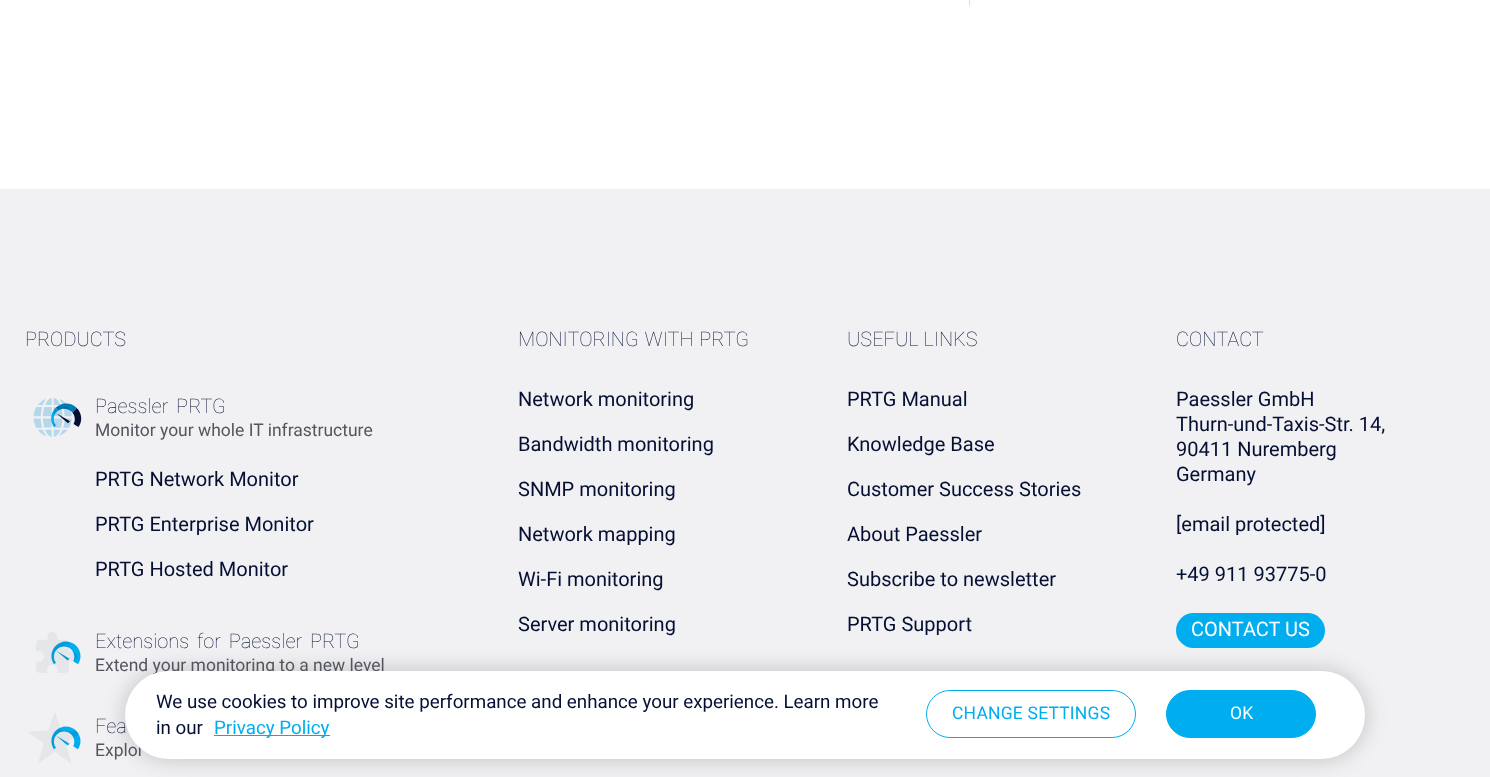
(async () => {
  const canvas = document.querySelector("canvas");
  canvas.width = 1490;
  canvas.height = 777;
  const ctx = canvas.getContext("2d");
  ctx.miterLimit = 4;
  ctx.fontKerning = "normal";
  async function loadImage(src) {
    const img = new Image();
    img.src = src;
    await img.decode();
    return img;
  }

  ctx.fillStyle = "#ffffff";
  ctx.fillRect(0, 0, 1490, 777);
  ctx.fillStyle = "#dadfe3";
  ctx.fillRect(969, 0, 1, 6);
  ctx.fillStyle = "#f1f1f3";
  ctx.fillRect(0, 189, 1490, 588);
  ctx.drawImage(await loadImage("img/1.png"), 33, 398, 49, 39);
  ctx.drawImage(await loadImage("img/2.png"), 36, 632, 45, 41);
  ctx.drawImage(await loadImage("img/3.png"), 28, 712, 54, 51);
  ctx.fillStyle = "#00aeef";
  ctx.beginPath();
  ctx.roundRect(1176, 613, 149, 35, 17.5);
  ctx.fill();
  ctx.fillStyle = "rgba(0, 0, 0, 0.2)";
  ctx.filter = "blur(11px)";
  ctx.beginPath();
  ctx.roundRect(125, 671, 1240, 88, 44);
  ctx.fill();
  ctx.filter = "none";
  ctx.font = "100 20px Roboto";
  ctx.fillStyle = "#050f34";
  ctx.fillText("PRODUCTS", 25, 346);
  ctx.wordSpacing = "3px";
  ctx.fillText("Paessler PRTG", 95, 413);
  ctx.wordSpacing = "0px";
  ctx.font = "17.5px Roboto";
  ctx.fillStyle = "#54565f";
  ctx.fillText("Monitor your whole IT infrastructure", 95, 436);
  ctx.font = "20px Roboto";
  ctx.fillStyle = "#050f34";
  for (const [text, x, y] of [
    ["PRTG Network Monitor", 95, 486],
    ["PRTG Enterprise Monitor", 95, 531],
    ["PRTG Hosted Monitor", 95, 576],
  ]) {
    ctx.fillText(text, x, y);
  }
  ctx.wordSpacing = "3px";
  ctx.font = "100 20px Roboto";
  ctx.fillText("Extensions for Paessler PRTG", 95, 648);
  ctx.wordSpacing = "0px";
  ctx.font = "17.5px Roboto";
  ctx.fillStyle = "#54565f";
  ctx.fillText("Extend your monitoring to a new level", 95, 671);
  ctx.font = "100 20px Roboto";
  ctx.fillStyle = "#050f34";
  ctx.fillText("Fea", 95, 733);
  ctx.font = "17.5px Roboto";
  ctx.fillStyle = "#54565f";
  ctx.fillText("Explor", 95, 756);
  ctx.wordSpacing = "1px";
  ctx.font = "100 20px Roboto";
  ctx.fillStyle = "#050f34";
  ctx.fillText("MONITORING WITH PRTG", 518, 346);
  ctx.wordSpacing = "0px";
  ctx.font = "20px Roboto";
  for (const [text, x, y] of [
    ["Network monitoring", 518, 406],
    ["Bandwidth monitoring", 518, 451],
    ["SNMP monitoring", 518, 496],
    ["Network mapping", 518, 541],
    ["Wi-Fi monitoring", 518, 586],
    ["Server monitoring", 518, 631],
  ]) {
    ctx.fillText(text, x, y);
  }
  ctx.font = "100 20px Roboto";
  ctx.fillText("USEFUL LINKS", 847, 346);
  ctx.font = "20px Roboto";
  for (const [text, x, y] of [
    ["PRTG Manual", 847, 406],
    ["Knowledge Base", 847, 451],
    ["Customer Success Stories", 847, 496],
    ["About Paessler", 847, 541],
    ["Subscribe to newsletter", 847, 586],
    ["PRTG Support", 847, 631],
  ]) {
    ctx.fillText(text, x, y);
  }
  ctx.font = "100 20px Roboto";
  ctx.fillText("CONTACT", 1176, 346);
  ctx.font = "20px Roboto";
  for (const [text, x, y] of [
    ["Paessler GmbH", 1176, 406],
    ["Thurn-und-Taxis-Str. 14,", 1176, 431],
    ["90411 Nuremberg", 1176, 456],
    ["Germany", 1176, 481],
    ["[email protected]", 1176, 531],
    ["+49 911 93775-0", 1176, 581],
  ]) {
    ctx.fillText(text, x, y);
  }
  ctx.fillStyle = "#ffffff";
  ctx.fillText("CONTACT US", 1191, 636);
  ctx.beginPath();
  ctx.roundRect(125, 671, 1240, 88, 44);
  ctx.fill();
  ctx.font = "18.75px Roboto";
  ctx.fillStyle = "#050f34";
  ctx.fillText("We use cookies to improve site performance and enhance your experience. Learn more", 156, 708);
  ctx.fillText("in our", 156, 734);
  ctx.fillStyle = "#00aeef";
  ctx.fillRect(214, 735, 116, 1);
  ctx.fillText("Privacy Policy", 214, 734);
  ctx.beginPath();
  ctx.roundRect(926.5, 690.5, 209, 47, 23.5);
  ctx.strokeStyle = "#00aeef";
  ctx.stroke();
  ctx.letterSpacing = "0.2px";
  ctx.font = "17.5px Roboto";
  ctx.fillText("CHANGE SETTINGS", 952, 719);
  ctx.beginPath();
  ctx.roundRect(1166.5, 690.5, 149, 47, 23.5);
  ctx.fill();
  ctx.stroke();
  ctx.fillStyle = "#ffffff";
  ctx.fillText("OK", 1230, 719);
})();
